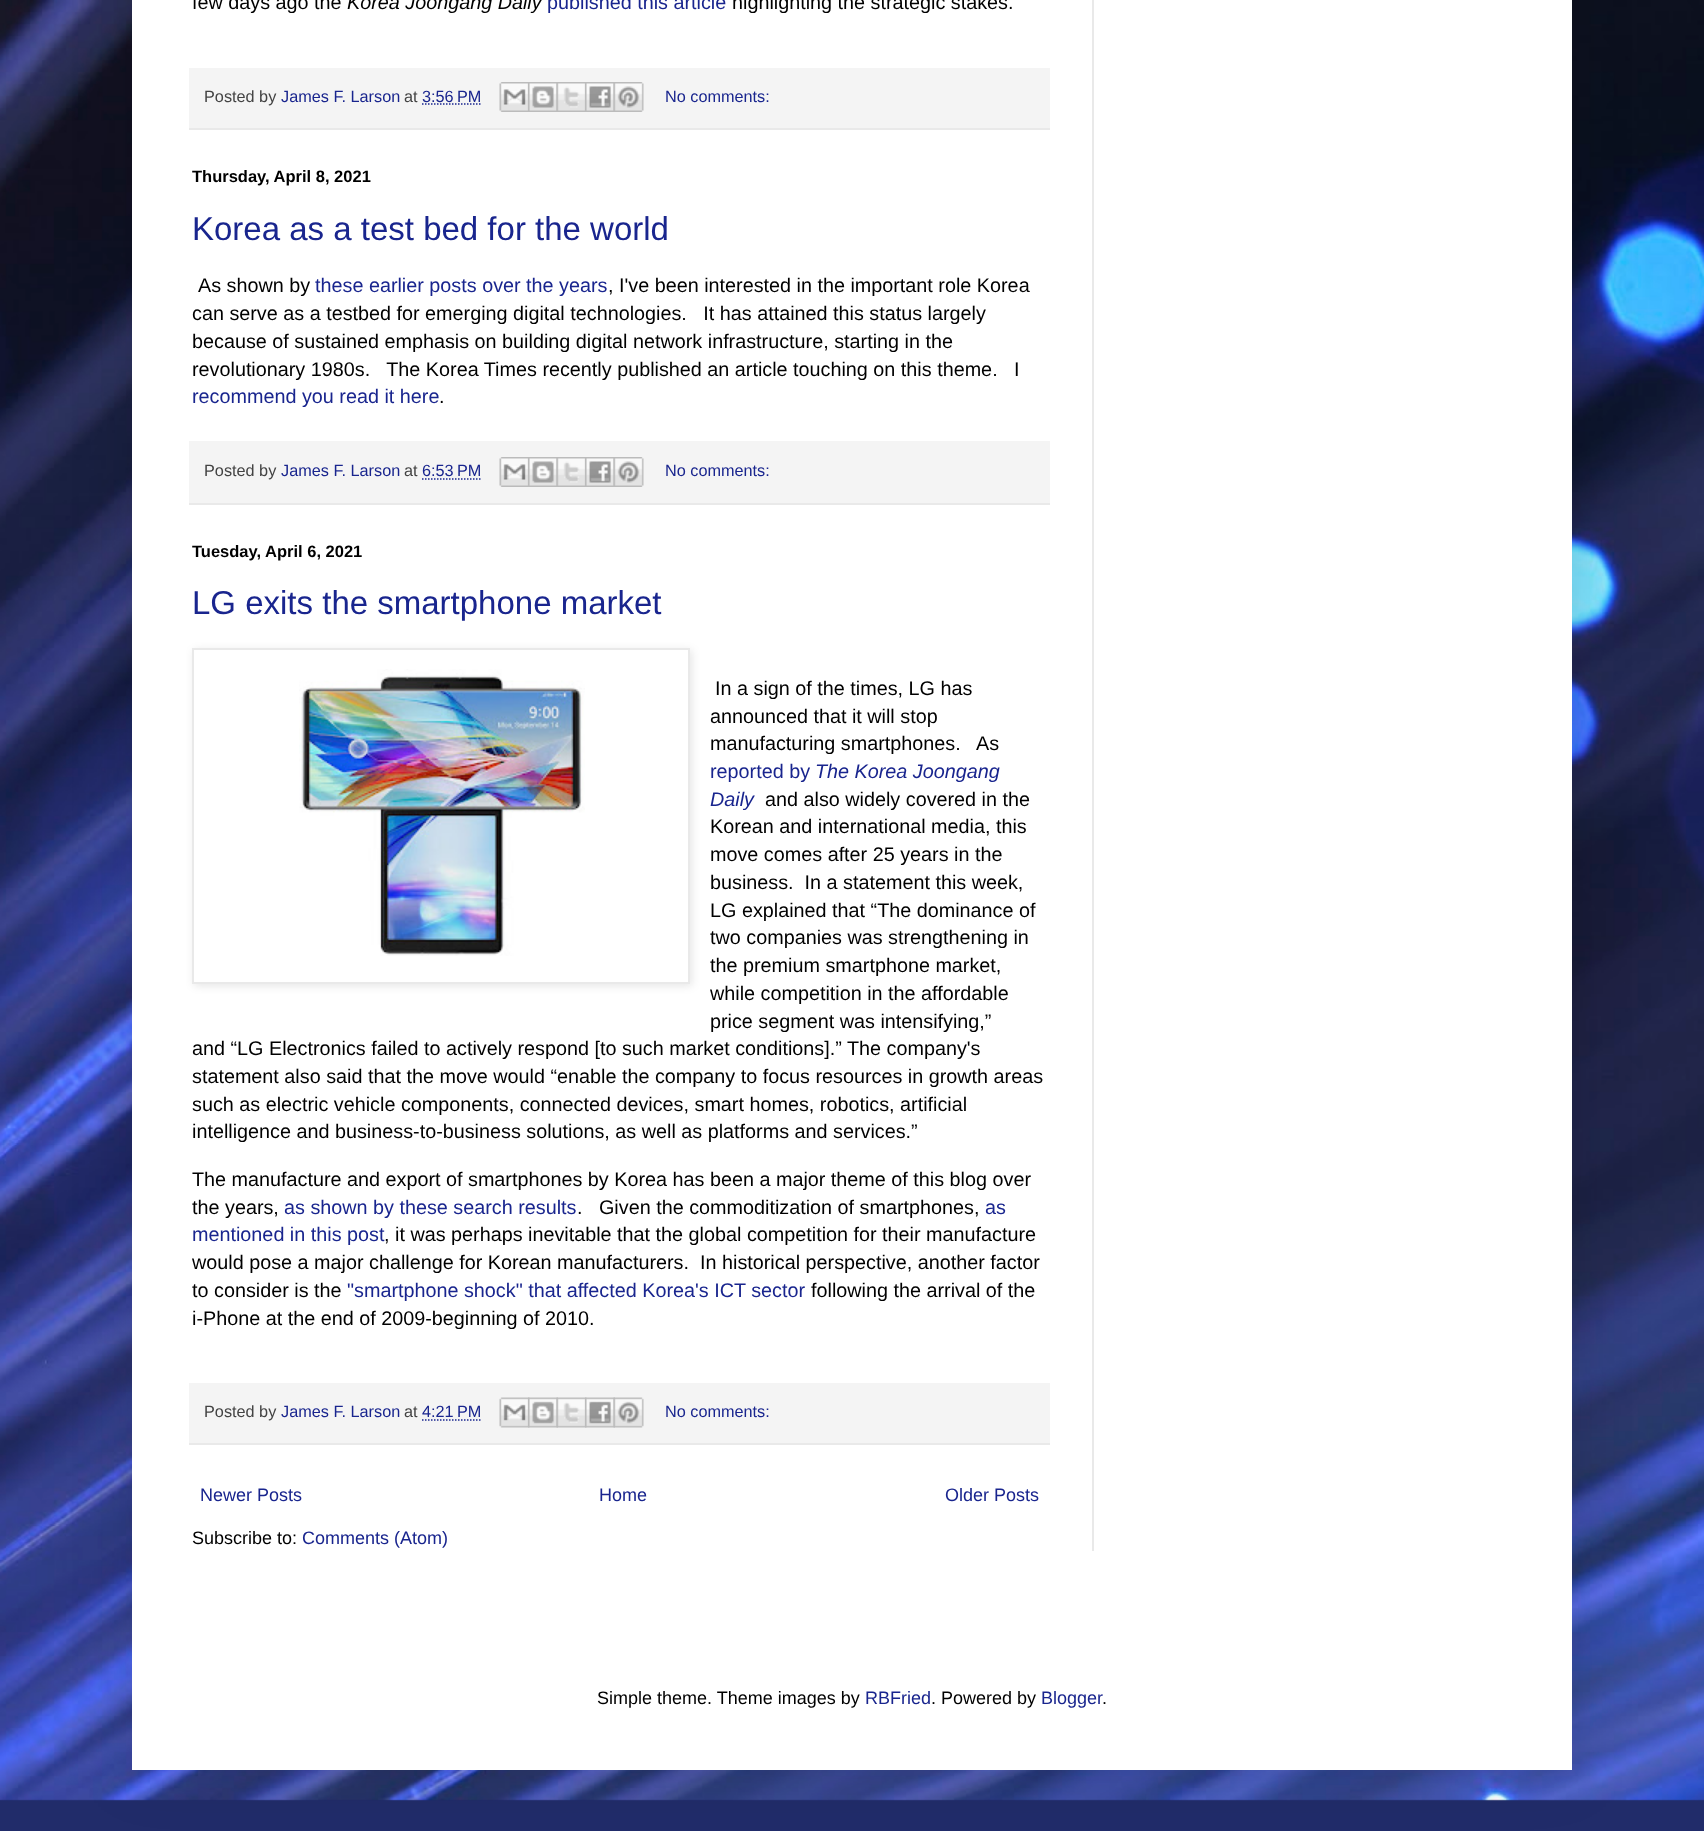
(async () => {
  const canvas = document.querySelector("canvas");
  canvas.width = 1704;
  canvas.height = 1831;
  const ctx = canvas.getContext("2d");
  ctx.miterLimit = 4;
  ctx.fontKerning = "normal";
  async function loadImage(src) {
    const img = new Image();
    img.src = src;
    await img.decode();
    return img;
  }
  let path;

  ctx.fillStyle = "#212c6a";
  ctx.fillRect(0, 0, 1704, 1831);
  ctx.drawImage(await loadImage("img/1.png"), 0, 0, 1704, 1801);
  ctx.fillStyle = "rgba(0, 0, 0, 0.15)";
  ctx.filter = "blur(30px)";
  ctx.beginPath();
  ctx.rect(132, -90, 1440, 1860);
  ctx.fill();
  ctx.filter = "none";
  for (const [x, y, w, h, color] of [
    [132, 0, 1440, 1770, "#ffffff"],
    [189, 68, 861, 60, "#f4f4f4"],
    [189, 128, 861, 2, "#e9e9e9"],
  ]) {
    ctx.fillStyle = color;
    ctx.fillRect(x, y, w, h);
  }
  path = new Path2D("M422 104H481");
  ctx.strokeStyle = "#19258e";
  ctx.lineWidth = 1.5;
  ctx.setLineDash([1.5, 1.5]);
  ctx.stroke(path);
  ctx.drawImage(await loadImage("img/2.png"), 499, 82, 29, 30);
  ctx.drawImage(await loadImage("img/3.png"), 528, 82, 29, 30);
  ctx.drawImage(await loadImage("img/4.png"), 556, 82, 29, 30);
  ctx.drawImage(await loadImage("img/5.png"), 585, 82, 29, 30);
  ctx.drawImage(await loadImage("img/6.png"), 613, 82, 31, 30);
  ctx.fillStyle = "#f4f4f4";
  ctx.fillRect(189, 441, 861, 62);
  ctx.fillStyle = "#e9e9e9";
  ctx.fillRect(189, 503, 861, 2);
  path = new Path2D("M422 479H481");
  ctx.stroke(path);
  ctx.drawImage(await loadImage("img/2.png"), 499, 457, 29, 30);
  ctx.drawImage(await loadImage("img/3.png"), 528, 457, 29, 30);
  ctx.drawImage(await loadImage("img/4.png"), 556, 457, 29, 30);
  ctx.drawImage(await loadImage("img/5.png"), 585, 457, 29, 30);
  ctx.drawImage(await loadImage("img/6.png"), 613, 457, 31, 30);
  ctx.save();
  path = new Path2D("M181 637H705V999H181ZM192 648H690V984H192Z");
  ctx.clip(path, "evenodd");
  ctx.fillStyle = "rgba(0, 0, 0, 0.1)";
  ctx.filter = "blur(4px)";
  ctx.beginPath();
  ctx.rect(194, 650, 498, 336);
  ctx.fill();
  ctx.filter = "none";
  ctx.restore();
  ctx.strokeStyle = "#e9e9e9";
  ctx.lineWidth = 2;
  ctx.setLineDash([]);
  ctx.strokeRect(193, 649, 496, 334);
  ctx.drawImage(await loadImage("img/7.png"), 299, 669, 286, 287);
  ctx.fillStyle = "#f4f4f4";
  ctx.fillRect(189, 1383, 861, 60);
  ctx.fillStyle = "#e9e9e9";
  ctx.fillRect(189, 1443, 861, 2);
  path = new Path2D("M422 1420H481");
  ctx.strokeStyle = "#19258e";
  ctx.lineWidth = 1.5;
  ctx.setLineDash([1.5, 1.5]);
  ctx.stroke(path);
  ctx.drawImage(await loadImage("img/8.png"), 499, 1397, 31, 31);
  ctx.drawImage(await loadImage("img/9.png"), 528, 1397, 30, 31);
  ctx.drawImage(await loadImage("img/10.png"), 556, 1397, 31, 31);
  ctx.drawImage(await loadImage("img/11.png"), 585, 1397, 30, 31);
  ctx.drawImage(await loadImage("img/12.png"), 613, 1397, 31, 31);
  ctx.fillRect(1092, 0, 2, 1551);
  ctx.font = "19.8px Liberation Sans";
  ctx.fillStyle = "#000000";
  ctx.fillText("few days ago the", 192, 9);
  ctx.font = "italic 19.8px Liberation Sans";
  ctx.fillText("Korea Joongang Daily", 347, 9);
  ctx.font = "19.8px Liberation Sans";
  ctx.fillStyle = "#19258e";
  ctx.fillText("published this article", 547, 9);
  ctx.fillStyle = "#000000";
  ctx.fillText("highlighting the strategic stakes.", 732, 9);
  ctx.font = "16.25px Liberation Sans";
  ctx.fillStyle = "#434343";
  ctx.fillText("Posted by", 204, 102);
  ctx.fillStyle = "#19258e";
  ctx.fillText("James F. Larson", 281, 102);
  ctx.fillStyle = "#434343";
  ctx.fillText("at", 404, 102);
  ctx.fillStyle = "#19258e";
  ctx.fillText("3:56 PM", 422, 102);
  ctx.fillText("No comments:", 665, 102);
  ctx.font = "bold 16.5px Liberation Sans";
  ctx.fillStyle = "#000000";
  ctx.fillText("Thursday, April 8, 2021", 192, 182);
  ctx.font = "33px Liberation Sans";
  ctx.fillStyle = "#19258e";
  ctx.fillText("Korea as a test bed for the world", 192, 240);
  ctx.font = "19.8px Liberation Sans";
  ctx.fillStyle = "#000000";
  ctx.fillText("As shown by", 198, 292);
  ctx.fillStyle = "#19258e";
  ctx.fillText("these earlier posts over the years", 315, 292);
  ctx.fillStyle = "#000000";
  for (const [text, x, y] of [
    [", I've been interested in the important role Korea", 608, 292],
    ["can serve as a testbed for emerging digital technologies.   It has attained this status largely", 192, 320],
    ["because of sustained emphasis on building digital network infrastructure, starting in the", 192, 348],
    ["revolutionary 1980s.   The Korea Times recently published an article touching on this theme.   I", 192, 376],
  ]) {
    ctx.fillText(text, x, y);
  }
  ctx.fillStyle = "#19258e";
  ctx.fillText("recommend you read it here", 192, 403);
  ctx.fillStyle = "#000000";
  ctx.fillText(".", 439, 403);
  ctx.font = "16.25px Liberation Sans";
  ctx.fillStyle = "#434343";
  ctx.fillText("Posted by", 204, 476);
  ctx.fillStyle = "#19258e";
  ctx.fillText("James F. Larson", 281, 476);
  ctx.fillStyle = "#434343";
  ctx.fillText("at", 404, 476);
  ctx.fillStyle = "#19258e";
  ctx.fillText("6:53 PM", 422, 476);
  ctx.fillText("No comments:", 665, 476);
  ctx.font = "bold 16.5px Liberation Sans";
  ctx.fillStyle = "#000000";
  ctx.fillText("Tuesday, April 6, 2021", 192, 557);
  ctx.font = "33px Liberation Sans";
  ctx.fillStyle = "#19258e";
  ctx.fillText("LG exits the smartphone market", 192, 614);
  ctx.font = "19.8px Liberation Sans";
  ctx.fillStyle = "#000000";
  for (const [text, x, y] of [
    ["In a sign of the times, LG has", 715, 695],
    ["announced that it will stop", 710, 723],
    ["manufacturing smartphones.   As", 710, 750],
  ]) {
    ctx.fillText(text, x, y);
  }
  ctx.fillStyle = "#19258e";
  ctx.fillText("reported by", 710, 778);
  ctx.font = "italic 19.8px Liberation Sans";
  ctx.fillText("The Korea Joongang", 815, 778);
  ctx.fillText("Daily", 710, 806);
  ctx.font = "19.8px Liberation Sans";
  ctx.fillStyle = "#000000";
  for (const [text, x, y] of [
    ["and also widely covered in the", 765, 806],
    ["Korean and international media, this", 710, 833],
    ["move comes after 25 years in the", 710, 861],
    ["business.  In a statement this week,", 710, 889],
    ["LG explained that “The dominance of", 710, 917],
    ["two companies was strengthening in", 710, 944],
    ["the premium smartphone market,", 710, 972],
    ["while competition in the affordable", 710, 1000],
    ["price segment was intensifying,”", 710, 1028],
    ["and “LG Electronics failed to actively respond [to such market conditions].” The company's", 192, 1055],
    ["statement also said that the move would “enable the company to focus resources in growth areas", 192, 1083],
    ["such as electric vehicle components, connected devices, smart homes, robotics, artificial", 192, 1111],
    ["intelligence and business-to-business solutions, as well as platforms and services.”", 192, 1138],
    ["The manufacture and export of smartphones by Korea has been a major theme of this blog over", 192, 1186],
    ["the years,", 192, 1214],
  ]) {
    ctx.fillText(text, x, y);
  }
  ctx.fillStyle = "#19258e";
  ctx.fillText("as shown by these search results", 284, 1214);
  ctx.fillStyle = "#000000";
  ctx.fillText(".   Given the commoditization of smartphones,", 577, 1214);
  ctx.fillStyle = "#19258e";
  ctx.fillText("as", 985, 1214);
  ctx.fillText("mentioned in this post", 192, 1241);
  ctx.fillStyle = "#000000";
  for (const [text, x, y] of [
    [", it was perhaps inevitable that the global competition for their manufacture", 384, 1241],
    ["would pose a major challenge for Korean manufacturers.  In historical perspective, another factor", 192, 1269],
    ["to consider is the", 192, 1297],
  ]) {
    ctx.fillText(text, x, y);
  }
  ctx.fillStyle = "#19258e";
  ctx.fillText("\"smartphone shock\" that affected Korea's ICT sector", 347, 1297);
  ctx.fillStyle = "#000000";
  ctx.fillText("following the arrival of the", 811, 1297);
  ctx.fillText("i-Phone at the end of 2009-beginning of 2010.", 192, 1325);
  ctx.font = "16.25px Liberation Sans";
  ctx.fillStyle = "#434343";
  ctx.fillText("Posted by", 204, 1417);
  ctx.fillStyle = "#19258e";
  ctx.fillText("James F. Larson", 281, 1417);
  ctx.fillStyle = "#434343";
  ctx.fillText("at", 404, 1417);
  ctx.fillStyle = "#19258e";
  ctx.fillText("4:21 PM", 422, 1417);
  ctx.fillText("No comments:", 665, 1417);
  ctx.font = "18px Liberation Sans";
  for (const [text, x, y] of [
    ["Newer Posts", 200, 1501],
    ["Home", 599, 1501],
    ["Older Posts", 945, 1501],
  ]) {
    ctx.fillText(text, x, y);
  }
  ctx.fillStyle = "#000000";
  ctx.fillText("Subscribe to:", 192, 1544);
  ctx.fillStyle = "#19258e";
  ctx.fillText("Comments (Atom)", 302, 1544);
  ctx.fillStyle = "#000000";
  ctx.fillText("Simple theme. Theme images by", 597, 1704);
  ctx.fillStyle = "#19258e";
  ctx.fillText("RBFried", 865, 1704);
  ctx.fillStyle = "#000000";
  ctx.fillText(". Powered by", 931, 1704);
  ctx.fillStyle = "#19258e";
  ctx.fillText("Blogger", 1041, 1704);
  ctx.fillStyle = "#000000";
  ctx.fillText(".", 1102, 1704);
})();
